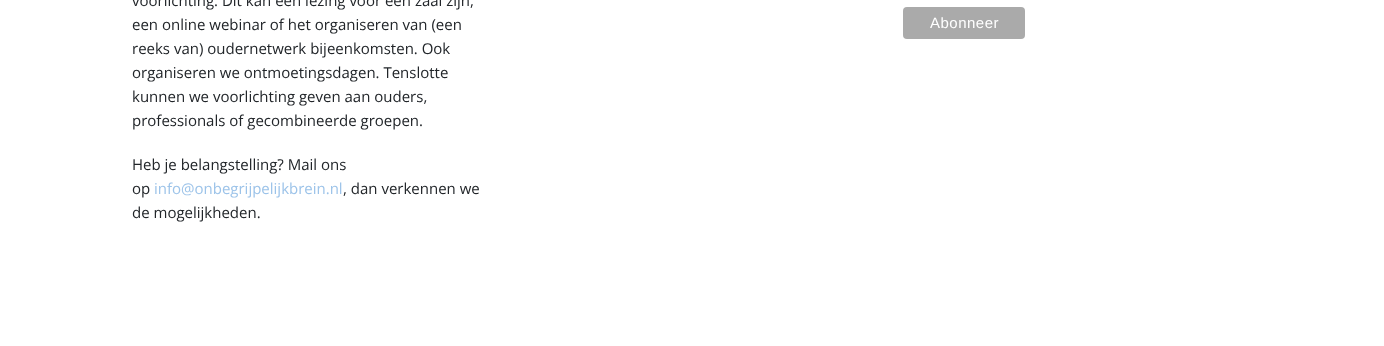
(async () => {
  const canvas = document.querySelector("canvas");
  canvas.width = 1384;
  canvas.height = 346;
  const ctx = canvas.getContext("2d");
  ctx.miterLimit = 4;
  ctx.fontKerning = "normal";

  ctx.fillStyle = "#ffffff";
  ctx.fillRect(0, 0, 1384, 346);
  ctx.fillStyle = "#aaaaaa";
  ctx.beginPath();
  ctx.roundRect(903, 7, 122, 32, 4);
  ctx.fill();
  ctx.font = "15px Open Sans";
  ctx.fillStyle = "#212529";
  for (const [text, x, y] of [
    ["voorlichting. Dit kan een lezing voor een zaal zijn,", 132, 6],
    ["een online webinar of het organiseren van (een", 132, 30],
    ["reeks van) oudernetwerk bijeenkomsten. Ook", 132, 54],
    ["organiseren we ontmoetingsdagen. Tenslotte", 132, 78],
    ["kunnen we voorlichting geven aan ouders,", 132, 102],
    ["professionals of gecombineerde groepen.", 132, 126],
    ["Heb je belangstelling? Mail ons", 132, 170],
    ["op", 132, 194],
  ]) {
    ctx.fillText(text, x, y);
  }
  ctx.fillStyle = "#9cc3e9";
  ctx.fillText("info@onbegrijpelijkbrein.nl", 154, 194);
  ctx.fillStyle = "#212529";
  ctx.fillText(", dan verkennen we", 343, 194);
  ctx.fillText("de mogelijkheden.", 132, 218);
  ctx.letterSpacing = "0.5px";
  ctx.font = "15px Liberation Sans";
  ctx.fillStyle = "#ffffff";
  ctx.fillText("Abonneer", 930, 28);
})();
